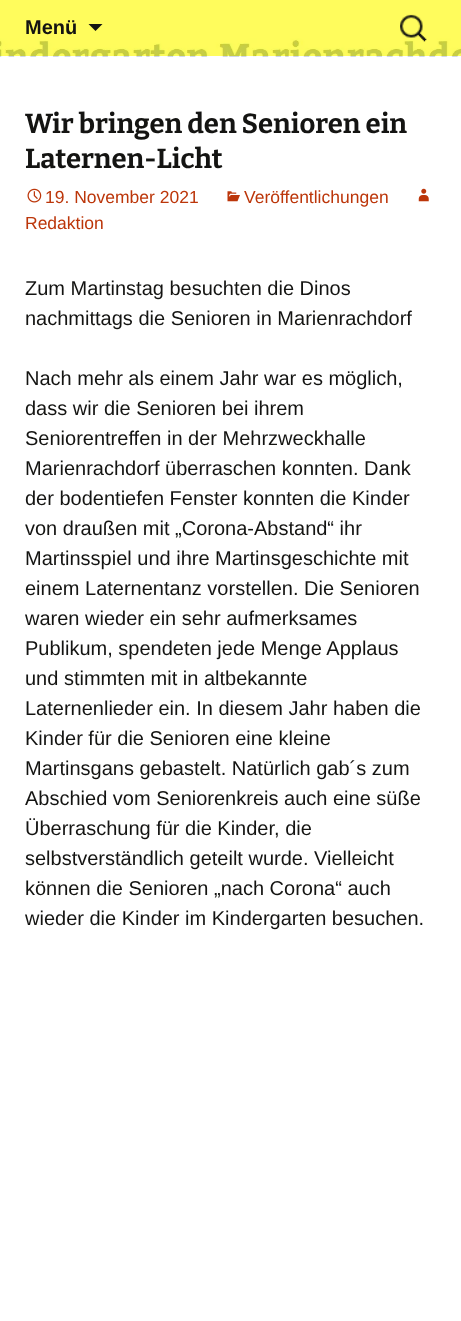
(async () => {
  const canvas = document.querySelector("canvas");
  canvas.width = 461;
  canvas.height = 1321;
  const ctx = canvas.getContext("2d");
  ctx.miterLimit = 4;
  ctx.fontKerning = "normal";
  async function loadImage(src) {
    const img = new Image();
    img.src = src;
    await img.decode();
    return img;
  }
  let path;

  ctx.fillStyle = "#ffffff";
  ctx.fillRect(0, 0, 461, 1321);
  ctx.fillStyle = "#fffc5c";
  ctx.fillRect(0, 0, 461, 38);
  ctx.drawImage(await loadImage("img/1.png"), 0, 38, 461, 19);
  ctx.fillStyle = "#141412";
  path = new Path2D("M88.5 24L95.5 31L102.5 24Z");
  ctx.fill(path);
  ctx.drawImage(await loadImage("img/2.png"), 400, 14, 27, 28);
  ctx.drawImage(await loadImage("img/3.png"), 27, 188, 15, 15);
  ctx.drawImage(await loadImage("img/4.png"), 227, 191, 13, 11);
  ctx.drawImage(await loadImage("img/5.png"), 418, 188, 11, 14);
  ctx.font = "bold 20px Liberation Sans";
  ctx.fillText("Menü", 25, 34);
  ctx.font = "bold 27.5px Bitter";
  ctx.fillText("Wir bringen den Senioren ein", 25, 133);
  ctx.fillText("Laternen-Licht", 25, 168);
  ctx.font = "17.5px Liberation Sans";
  ctx.fillStyle = "#bc360a";
  for (const [text, x, y] of [
    ["19. November 2021", 45, 203],
    ["Veröffentlichungen", 244, 203],
    ["Redaktion", 25, 229],
  ]) {
    ctx.fillText(text, x, y);
  }
  ctx.font = "20px Liberation Sans";
  ctx.fillStyle = "#141412";
  for (const [text, x, y] of [
    ["Zum Martinstag besuchten die Dinos", 25, 295],
    ["nachmittags die Senioren in Marienrachdorf", 25, 325],
    ["Nach mehr als einem Jahr war es möglich,", 25, 385],
    ["dass wir die Senioren bei ihrem", 25, 415],
    ["Seniorentreffen in der Mehrzweckhalle", 25, 445],
    ["Marienrachdorf überraschen konnten. Dank", 25, 475],
    ["der bodentiefen Fenster konnten die Kinder", 25, 505],
    ["von draußen mit „Corona-Abstand“ ihr", 25, 535],
    ["Martinsspiel und ihre Martinsgeschichte mit", 25, 565],
    ["einem Laternentanz vorstellen. Die Senioren", 25, 595],
    ["waren wieder ein sehr aufmerksames", 25, 625],
    ["Publikum, spendeten jede Menge Applaus", 25, 655],
    ["und stimmten mit in altbekannte", 25, 685],
    ["Laternenlieder ein. In diesem Jahr haben die", 25, 715],
    ["Kinder für die Senioren eine kleine", 25, 745],
    ["Martinsgans gebastelt. Natürlich gab´s zum", 25, 775],
    ["Abschied vom Seniorenkreis auch eine süße", 25, 805],
    ["Überraschung für die Kinder, die", 25, 835],
    ["selbstverständlich geteilt wurde. Vielleicht", 25, 865],
    ["können die Senioren „nach Corona“ auch", 25, 895],
    ["wieder die Kinder im Kindergarten besuchen.", 25, 925],
  ]) {
    ctx.fillText(text, x, y);
  }
})();
